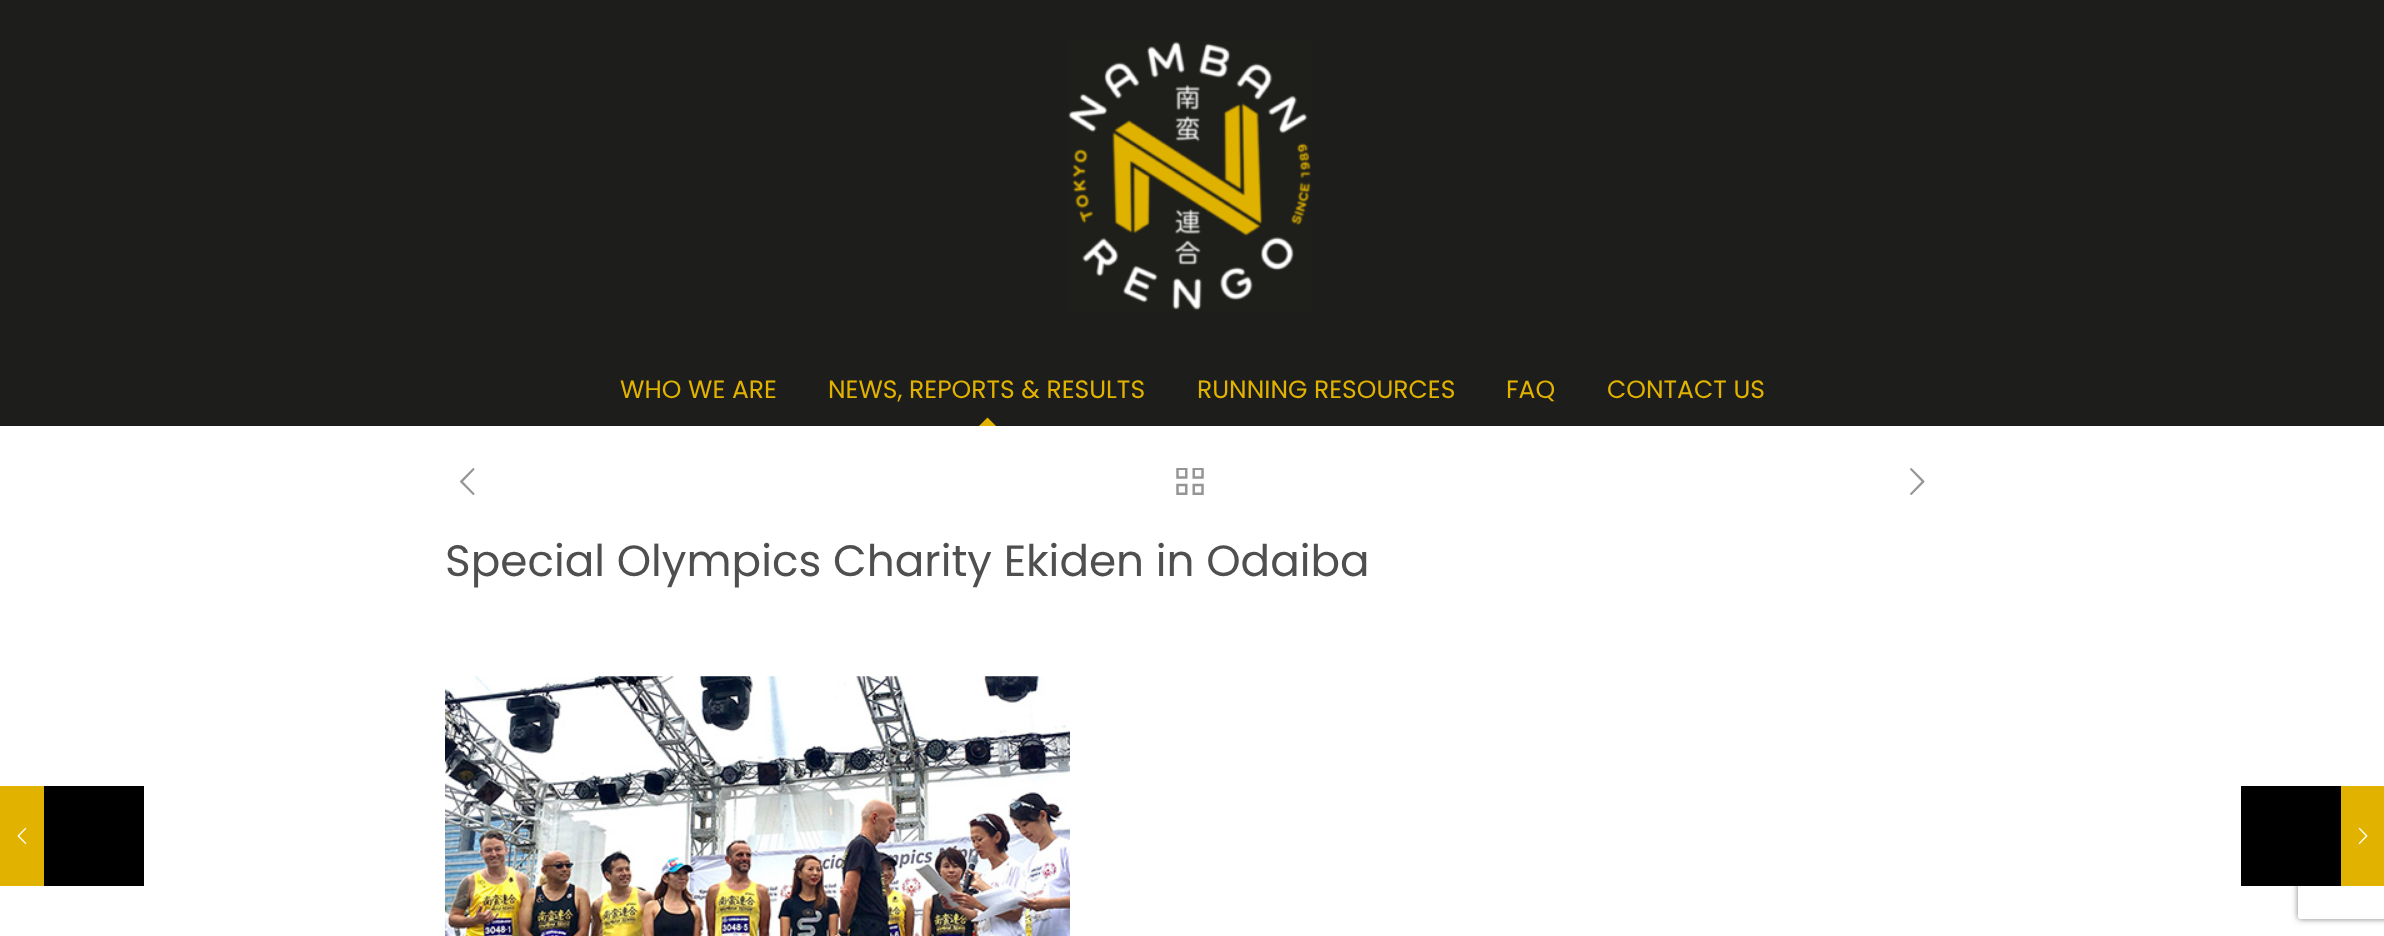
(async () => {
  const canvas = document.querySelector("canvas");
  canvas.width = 2384;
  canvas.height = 936;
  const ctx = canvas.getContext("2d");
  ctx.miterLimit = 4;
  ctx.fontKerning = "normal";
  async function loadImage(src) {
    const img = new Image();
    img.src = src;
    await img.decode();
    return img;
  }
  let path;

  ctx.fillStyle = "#ffffff";
  ctx.fillRect(0, 0, 2384, 936);
  ctx.fillStyle = "#1d1d1b";
  ctx.fillRect(0, 0, 2384, 426);
  ctx.drawImage(await loadImage("img/1.png"), 1068, 41, 243, 270);
  ctx.fillStyle = "#e1b300";
  path = new Path2D("M996 426H979L987.5 417.5Z");
  ctx.fill(path);
  ctx.drawImage(await loadImage("img/2.png"), 460, 468, 15, 27);
  ctx.drawImage(await loadImage("img/3.png"), 1176, 468, 28, 27);
  ctx.drawImage(await loadImage("img/4.png"), 1910, 468, 15, 27);
  ctx.drawImage(await loadImage("img/5.png"), 445, 676, 625, 260);
  ctx.fillRect(0, 786, 44, 100);
  ctx.drawImage(await loadImage("img/6.png"), 17, 827, 10, 17);
  ctx.fillStyle = "#000000";
  ctx.fillRect(44, 786, 100, 100);
  ctx.save();
  path = new Path2D("M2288 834H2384V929H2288ZM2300.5 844H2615.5C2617 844 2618 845 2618 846.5V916.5C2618 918 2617 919 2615.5 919H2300.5C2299 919 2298 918 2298 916.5V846.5C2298 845 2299 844 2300.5 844Z");
  ctx.clip(path, "evenodd");
  ctx.fillStyle = "#808080";
  ctx.filter = "blur(3px)";
  ctx.beginPath();
  ctx.roundRect(2298, 844, 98, 75, 2.5);
  ctx.fill();
  ctx.filter = "none";
  ctx.restore();
  ctx.fillRect(2241, 786, 100, 100);
  ctx.fillStyle = "#e1b300";
  ctx.fillRect(2341, 786, 43, 100);
  ctx.drawImage(await loadImage("img/7.png"), 2358, 827, 10, 17);
  ctx.font = "25px Poppins";
  for (const [text, x, y] of [
    ["WHO WE ARE", 620, 398],
    ["NEWS, REPORTS & RESULTS", 828, 398],
    ["RUNNING RESOURCES", 1197, 398],
    ["FAQ", 1506, 398],
    ["CONTACT US", 1607, 398],
  ]) {
    ctx.fillText(text, x, y);
  }
  ctx.font = "43.75px Poppins";
  ctx.fillStyle = "#4f4f4f";
  ctx.fillText("Special Olympics Charity Ekiden in Odaiba", 445, 576);
})();
